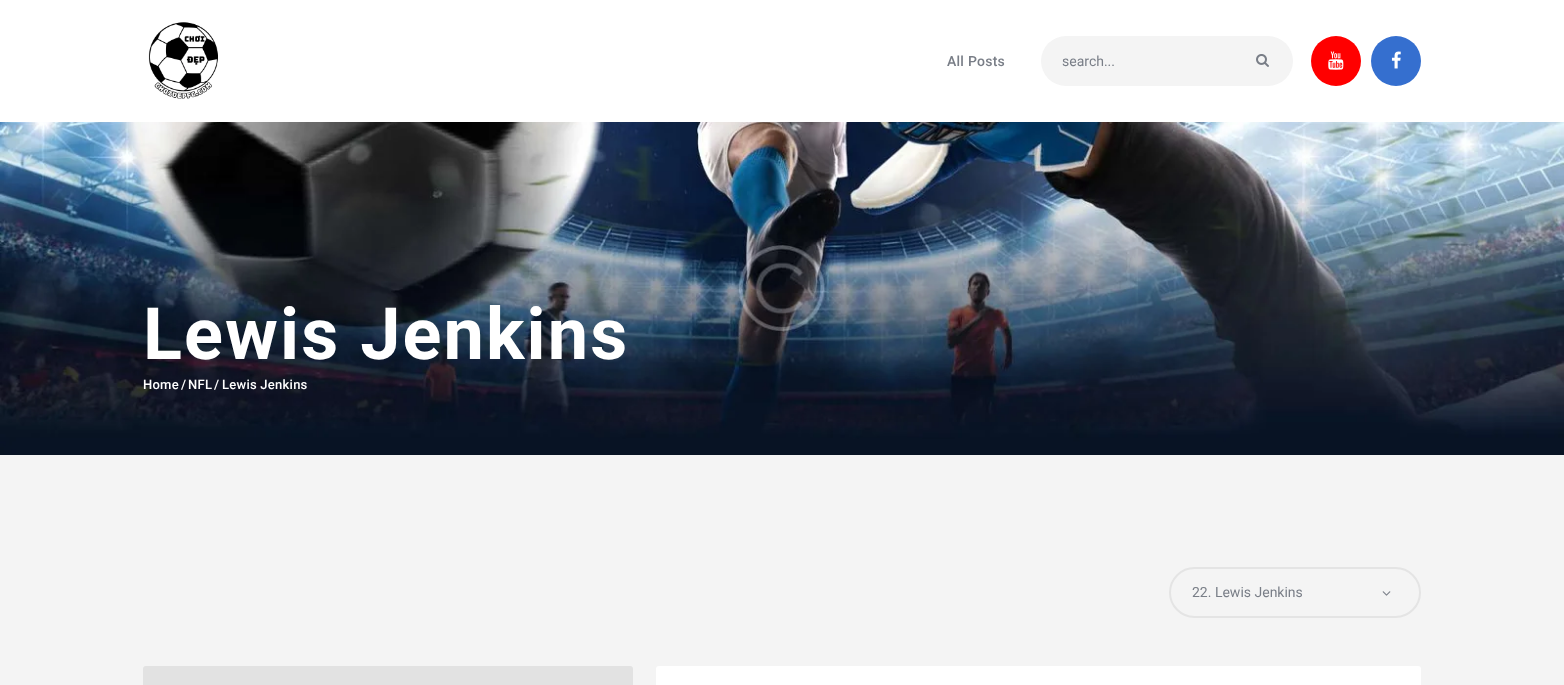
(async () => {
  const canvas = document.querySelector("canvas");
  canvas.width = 1564;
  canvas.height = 685;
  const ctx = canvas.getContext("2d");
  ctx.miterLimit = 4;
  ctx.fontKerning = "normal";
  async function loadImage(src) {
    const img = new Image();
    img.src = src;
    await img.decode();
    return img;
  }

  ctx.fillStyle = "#f4f4f4";
  ctx.fillRect(0, 0, 1564, 685);
  ctx.fillStyle = "#ffffff";
  ctx.fillRect(0, 0, 1564, 122);
  ctx.drawImage(await loadImage("img/1.png"), 148, 22, 70, 77);
  ctx.fillStyle = "#f4f4f4";
  ctx.beginPath();
  ctx.roundRect(1041, 36, 252, 50, 25);
  ctx.fill();
  ctx.drawImage(await loadImage("img/2.png"), 1256, 54, 13, 13);
  ctx.fillStyle = "#ff0000";
  ctx.beginPath();
  ctx.arc(1336, 61, 25, 0, Math.PI * 2);
  ctx.fill();
  ctx.drawImage(await loadImage("img/3.png"), 1328, 51, 16, 19);
  ctx.fillStyle = "#356fcf";
  ctx.beginPath();
  ctx.arc(1396, 61, 25, 0, Math.PI * 2);
  ctx.fill();
  ctx.drawImage(await loadImage("img/4.png"), 1391, 51, 10, 18);
  ctx.drawImage(await loadImage("img/5.png"), 0, 122, 1564, 333);
  ctx.beginPath();
  ctx.roundRect(1170, 568, 250, 49, 24.5);
  ctx.strokeStyle = "#e4e4e4";
  ctx.lineWidth = 2;
  ctx.stroke();
  ctx.drawImage(await loadImage("img/6.png"), 1382, 591, 9, 5);
  ctx.fillStyle = "#e2e2e2";
  ctx.beginPath();
  ctx.roundRect(143, 666, 490, 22, 3);
  ctx.fill();
  ctx.fillStyle = "#ffffff";
  ctx.beginPath();
  ctx.roundRect(656, 666, 765, 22, 3);
  ctx.fill();
  ctx.letterSpacing = "0.25px";
  ctx.font = "500 14px Roboto";
  ctx.fillStyle = "#797e87";
  ctx.fillText("All Posts", 947, 66);
  ctx.letterSpacing = "0px";
  ctx.font = "14px Roboto";
  ctx.fillText("search...", 1062, 66);
  ctx.letterSpacing = "2.1px";
  ctx.font = "bold 72px Roboto";
  ctx.fillStyle = "#ffffff";
  ctx.fillText("Lewis Jenkins", 143, 359);
  ctx.letterSpacing = "0.25px";
  ctx.font = "500 13px Roboto";
  for (const [text, x, y] of [
    ["Home", 143, 389],
    ["/", 181, 389],
    ["NFL", 188, 389],
    ["/", 214, 389],
    ["Lewis Jenkins", 222, 389],
  ]) {
    ctx.fillText(text, x, y);
  }
  ctx.letterSpacing = "0px";
  ctx.font = "14px Roboto";
  ctx.fillStyle = "#797e87";
  ctx.fillText("22. Lewis Jenkins", 1192, 597);
})();
